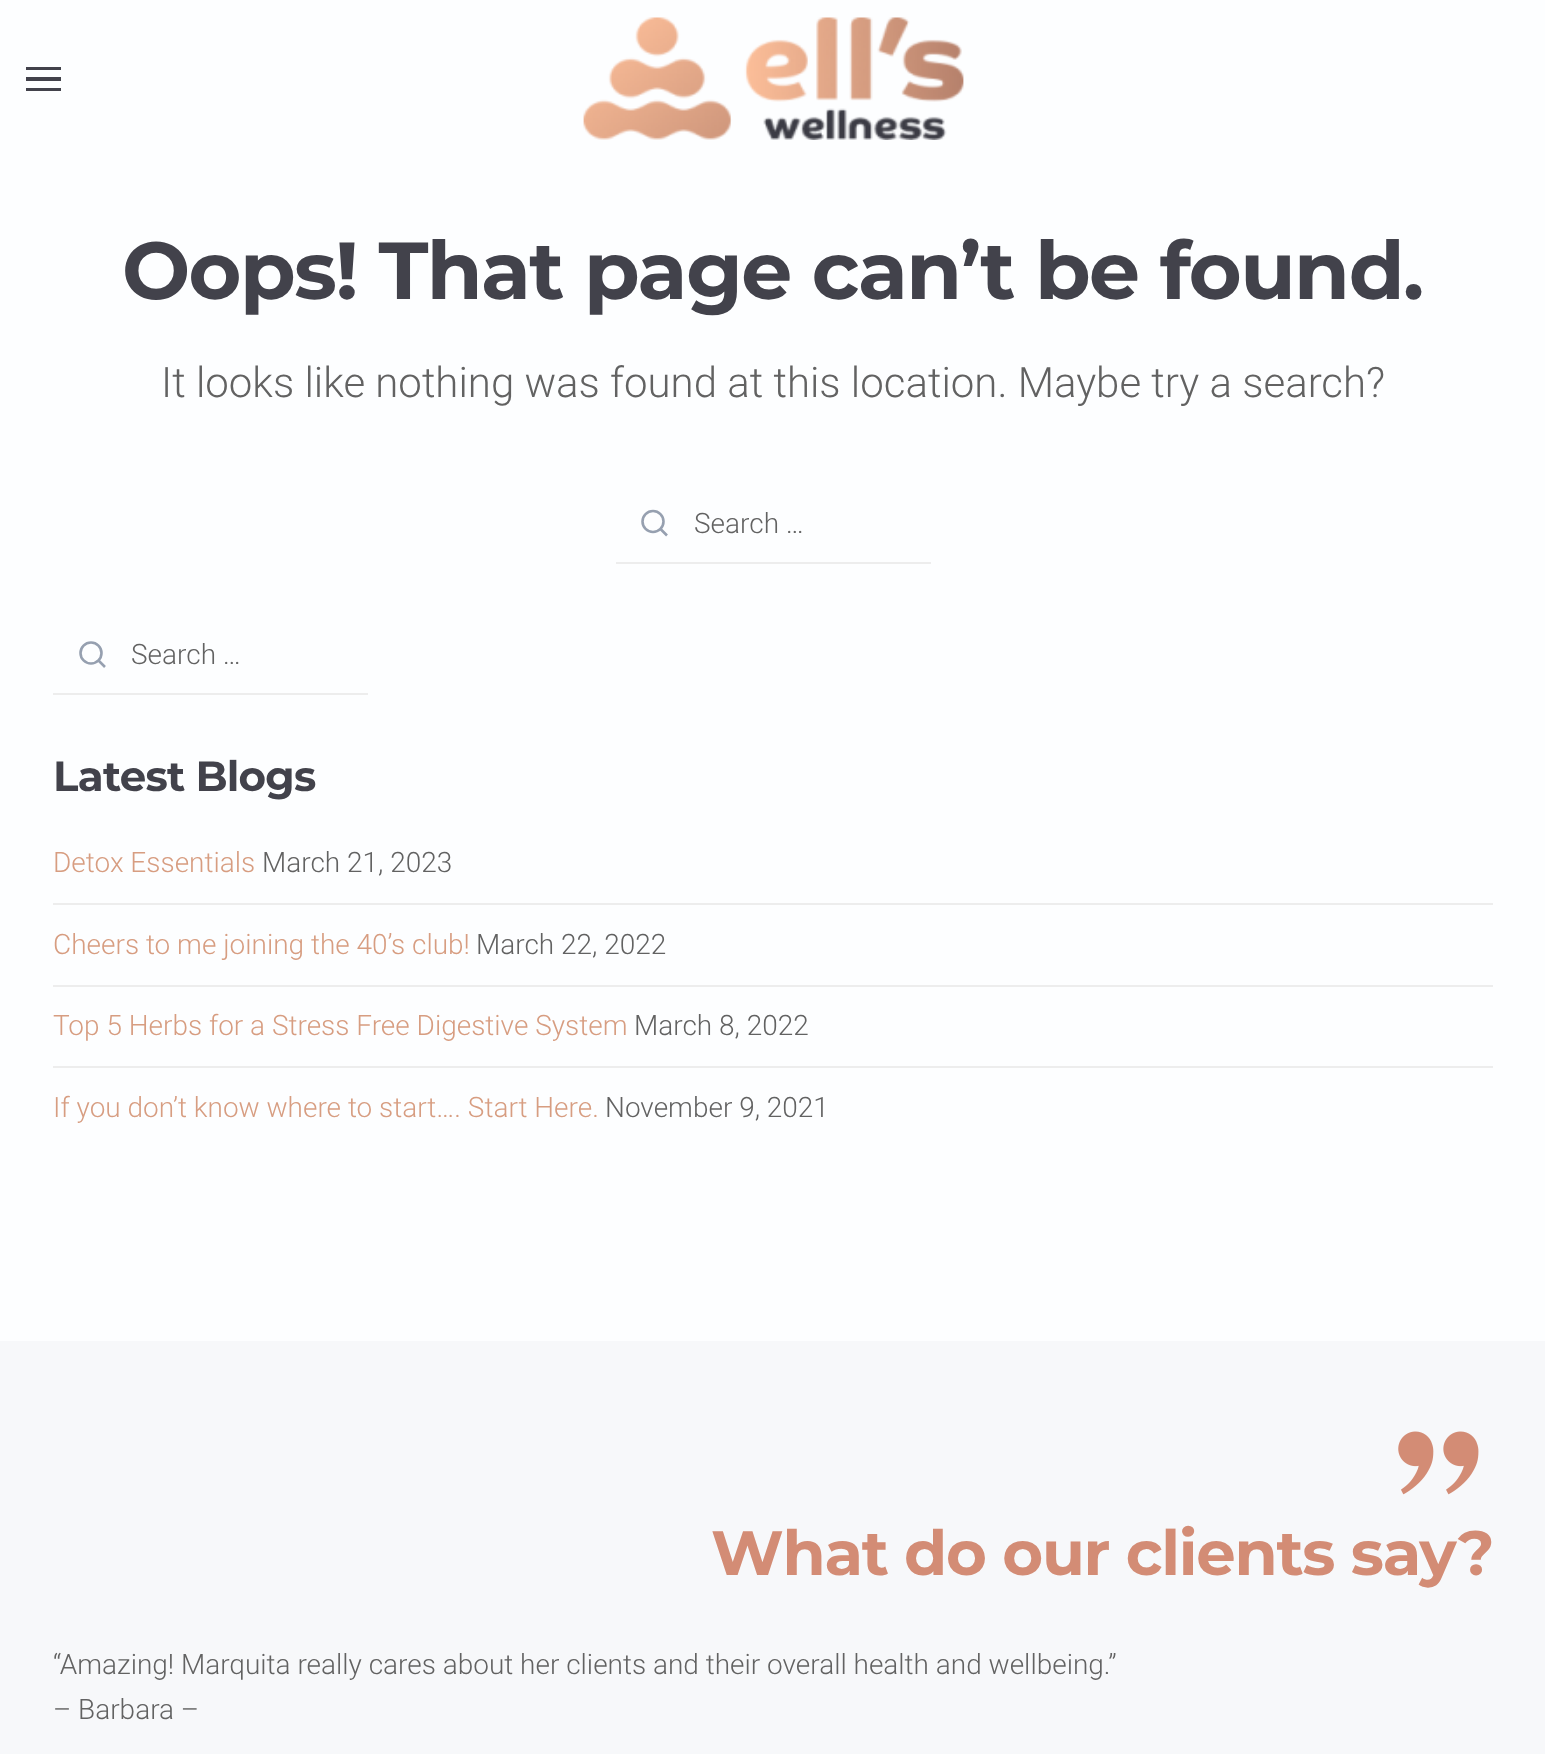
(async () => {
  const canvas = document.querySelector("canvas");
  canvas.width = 1545;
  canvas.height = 1754;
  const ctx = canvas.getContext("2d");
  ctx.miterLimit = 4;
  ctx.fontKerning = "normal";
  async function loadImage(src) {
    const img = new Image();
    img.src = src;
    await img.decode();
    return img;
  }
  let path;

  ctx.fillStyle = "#fdfeff";
  ctx.fillRect(0, 0, 1545, 1754);
  for (const [x, y, w, h, color] of [
    [26, 67, 35, 3, "#42424b"],
    [26, 77, 35, 4, "#42424b"],
    [26, 88, 35, 3, "#42424b"],
  ]) {
    ctx.fillStyle = color;
    ctx.fillRect(x, y, w, h);
  }
  ctx.drawImage(await loadImage("img/1.png"), 583, 17, 381, 123);
  ctx.beginPath();
  ctx.arc(653, 521.5, 10.5, 0, Math.PI * 2);
  ctx.strokeStyle = "#96a0b0";
  ctx.lineWidth = 2.6;
  ctx.stroke();
  path = new Path2D("M660 528.5L667 535.5Z");
  ctx.stroke(path);
  ctx.fillStyle = "#ededed";
  ctx.fillRect(616, 562, 315, 2);
  ctx.beginPath();
  ctx.arc(91, 653, 10.5, 0, Math.PI * 2);
  ctx.stroke();
  path = new Path2D("M98 660L105 667Z");
  ctx.stroke(path);
  for (const [x, y, w, h, color] of [
    [53, 693, 315, 2, "#ededed"],
    [53, 903, 1440, 2, "#ededed"],
    [53, 985, 1440, 2, "#ededed"],
    [53, 1066, 1440, 2, "#ededed"],
    [0, 1341, 1545, 413, "#f7f8fa"],
  ]) {
    ctx.fillStyle = color;
    ctx.fillRect(x, y, w, h);
  }
  ctx.drawImage(await loadImage("img/2.png"), 1398, 1431, 81, 64);
  ctx.letterSpacing = "-1.6px";
  ctx.font = "bold 80.8px Montserrat";
  ctx.fillStyle = "#42424b";
  ctx.fillText("Oops! That page can’t be found.", 122, 299);
  ctx.letterSpacing = "0px";
  ctx.font = "300 42px Roboto";
  ctx.fillStyle = "#626262";
  ctx.fillText("It looks like nothing was found at this location. Maybe try a search?", 161, 397);
  ctx.font = "300 28px Roboto";
  ctx.fillText("Search …", 694, 533);
  ctx.fillText("Search …", 131, 664);
  ctx.letterSpacing = "-0.8px";
  ctx.font = "bold 42px Montserrat";
  ctx.fillStyle = "#42424b";
  ctx.fillText("Latest Blogs", 53, 791);
  ctx.letterSpacing = "0px";
  ctx.font = "300 28px Roboto";
  ctx.fillStyle = "#d79d81";
  ctx.fillText("Detox Essentials", 53, 872);
  ctx.fillStyle = "#626262";
  ctx.fillText("March 21, 2023", 262, 872);
  ctx.fillStyle = "#d79d81";
  ctx.fillText("Cheers to me joining the 40’s club!", 53, 954);
  ctx.fillStyle = "#626262";
  ctx.fillText("March 22, 2022", 476, 954);
  ctx.fillStyle = "#d79d81";
  ctx.fillText("Top 5 Herbs for a Stress Free Digestive System", 53, 1035);
  ctx.fillStyle = "#626262";
  ctx.fillText("March 8, 2022", 634, 1035);
  ctx.fillStyle = "#d79d81";
  ctx.fillText("If you don’t know where to start…. Start Here.", 53, 1117);
  ctx.fillStyle = "#626262";
  ctx.fillText("November 9, 2021", 605, 1117);
  ctx.letterSpacing = "-1.25px";
  ctx.font = "bold 62.5px Montserrat";
  ctx.fillStyle = "#d38c75";
  ctx.fillText("What do our clients say?", 711, 1575);
  ctx.letterSpacing = "0px";
  ctx.font = "300 28px Roboto";
  ctx.fillStyle = "#626262";
  ctx.fillText("“Amazing! Marquita really cares about her clients and their overall health and wellbeing.”", 53, 1674);
  ctx.fillText("– Barbara –", 53, 1719);
})();
